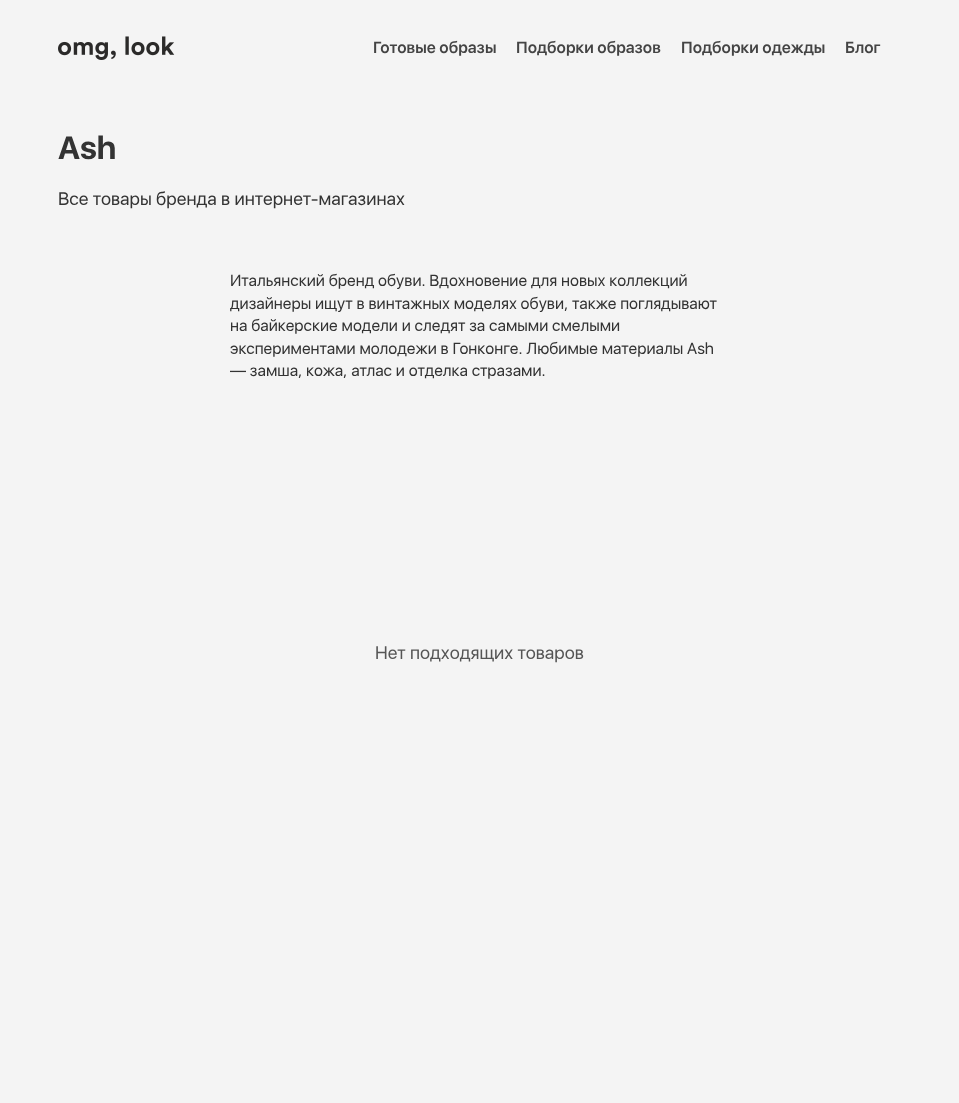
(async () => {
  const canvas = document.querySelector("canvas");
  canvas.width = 959;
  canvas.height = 1103;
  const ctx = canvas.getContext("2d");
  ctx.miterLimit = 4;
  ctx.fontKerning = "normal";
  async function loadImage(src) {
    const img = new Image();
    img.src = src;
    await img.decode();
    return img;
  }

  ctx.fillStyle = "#f4f4f4";
  ctx.fillRect(0, 0, 959, 1103);
  ctx.drawImage(await loadImage("img/1.png"), 58, 36, 117, 24);
  ctx.font = "600 16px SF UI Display";
  ctx.fillStyle = "#444444";
  for (const [text, x, y] of [
    ["Готовые образы", 373, 53],
    ["Подборки образов", 516, 53],
    ["Подборки одежды", 681, 53],
    ["Блог", 845, 53],
  ]) {
    ctx.fillText(text, x, y);
  }
  ctx.font = "bold 32px SF UI Display";
  ctx.fillStyle = "#333333";
  ctx.fillText("Ash", 58, 159);
  ctx.font = "18px SF UI Display";
  ctx.fillText("Все товары бренда в интернет-магазинах", 58, 205);
  ctx.font = "16px SF UI Display";
  for (const [text, x, y] of [
    ["Итальянский бренд обуви. Вдохновение для новых коллекций", 230, 286],
    ["дизайнеры ищут в винтажных моделях обуви, также поглядывают", 230, 309],
    ["на байкерские модели и следят за самыми смелыми", 230, 331],
    ["экспериментами молодежи в Гонконге. Любимые материалы Ash", 230, 354],
    ["— замша, кожа, атлас и отделка стразами.", 230, 376],
  ]) {
    ctx.fillText(text, x, y);
  }
  ctx.font = "18px SF UI Display";
  ctx.fillStyle = "#555555";
  ctx.fillText("Нет подходящих товаров", 375, 659);
})();
